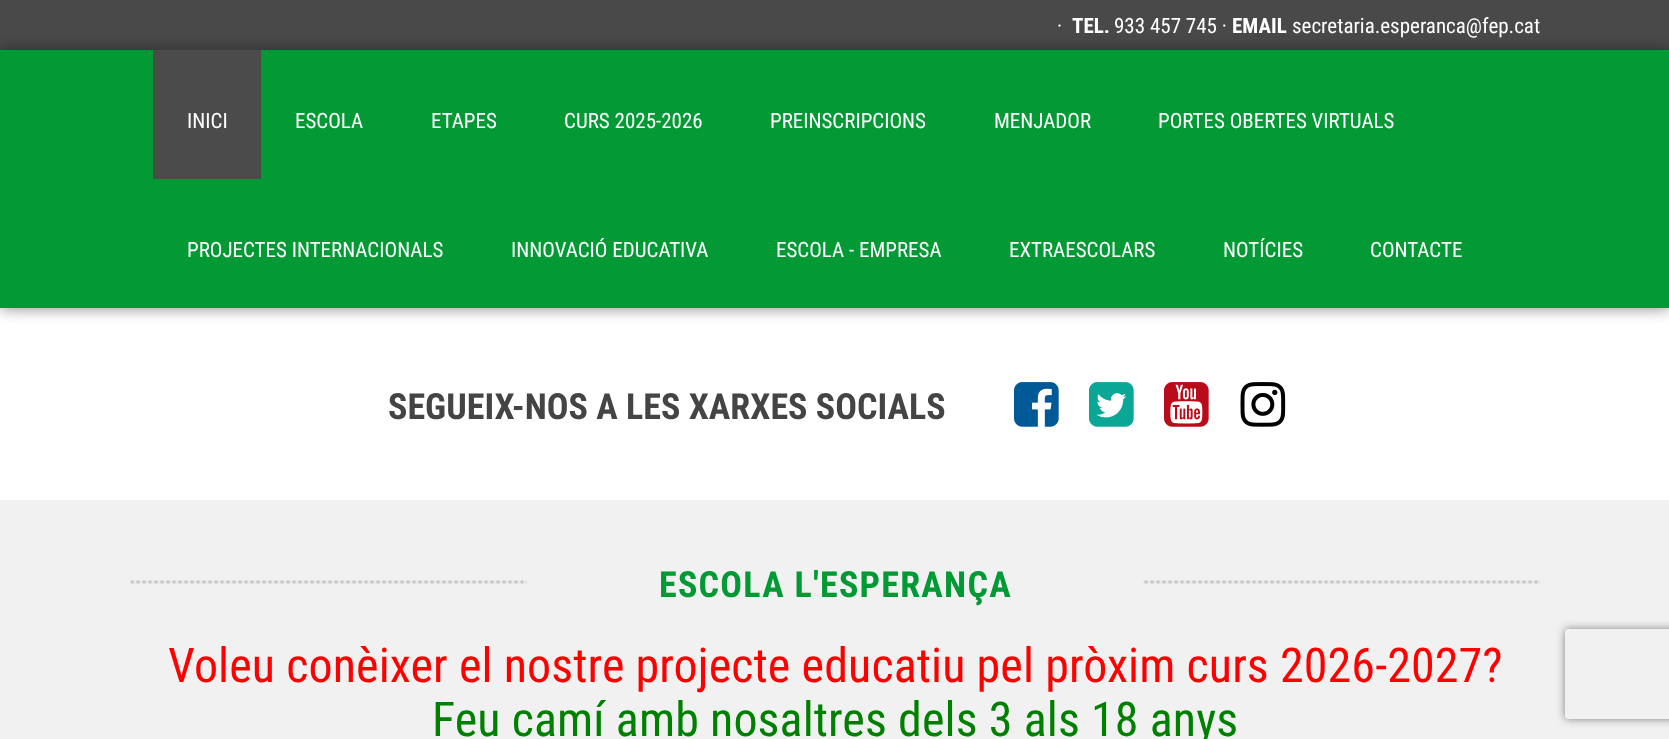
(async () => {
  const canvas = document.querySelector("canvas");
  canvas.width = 1669;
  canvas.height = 739;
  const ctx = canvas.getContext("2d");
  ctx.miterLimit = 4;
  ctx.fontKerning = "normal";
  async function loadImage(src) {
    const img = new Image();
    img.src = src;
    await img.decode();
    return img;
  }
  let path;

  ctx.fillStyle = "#ffffff";
  ctx.fillRect(0, 0, 1669, 739);
  ctx.fillStyle = "#494949";
  ctx.fillRect(0, 0, 1669, 50);
  ctx.fillStyle = "rgba(19, 18, 21, 0.52)";
  ctx.filter = "blur(7.5px)";
  ctx.beginPath();
  ctx.rect(0, 50, 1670, 258);
  ctx.fill();
  ctx.filter = "none";
  ctx.fillStyle = "#039a35";
  ctx.fillRect(0, 50, 1669, 258);
  ctx.fillStyle = "#4b4b4b";
  ctx.fillRect(153, 50, 108, 129);
  ctx.drawImage(await loadImage("img/1.png"), 1014, 382, 45, 45);
  ctx.drawImage(await loadImage("img/2.png"), 1089, 382, 45, 45);
  ctx.drawImage(await loadImage("img/3.png"), 1164, 382, 45, 45);
  ctx.drawImage(await loadImage("img/4.png"), 1240, 382, 46, 45);
  ctx.fillStyle = "#f1f1f1";
  ctx.fillRect(0, 500, 1669, 239);
  ctx.drawImage(await loadImage("img/5.png"), 130, 580, 1411, 4);
  ctx.fillRect(527, 580, 616, 4);
  ctx.save();
  path = new Path2D("M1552 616H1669V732H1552ZM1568 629H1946C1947.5 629 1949 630.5 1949 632V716C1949 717.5 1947.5 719 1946 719H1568C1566.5 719 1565 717.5 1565 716V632C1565 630.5 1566.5 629 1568 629Z");
  ctx.clip(path, "evenodd");
  ctx.fillStyle = "#808080";
  ctx.filter = "blur(4px)";
  ctx.beginPath();
  ctx.roundRect(1565, 629, 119, 90, 3);
  ctx.fill();
  ctx.filter = "none";
  ctx.restore();
  ctx.font = "21px Roboto Condensed";
  ctx.fillStyle = "#ffffff";
  ctx.fillText("·", 1057, 33);
  ctx.font = "bold 21px Roboto Condensed";
  ctx.fillText("TEL.", 1072, 33);
  ctx.font = "21px Roboto Condensed";
  ctx.fillText("933 457 745 ·", 1114, 33);
  ctx.font = "bold 21px Roboto Condensed";
  ctx.fillText("EMAIL", 1232, 33);
  ctx.font = "21px Roboto Condensed";
  for (const [text, x, y] of [
    ["secretaria.esperanca@fep.cat", 1292, 33],
    ["INICI", 187, 128],
    ["ESCOLA", 295, 128],
    ["ETAPES", 431, 128],
    ["CURS 2025-2026", 564, 128],
    ["PREINSCRIPCIONS", 770, 128],
    ["MENJADOR", 994, 128],
    ["PORTES OBERTES VIRTUALS", 1158, 128],
    ["PROJECTES INTERNACIONALS", 187, 257],
    ["INNOVACIÓ EDUCATIVA", 511, 257],
    ["ESCOLA - EMPRESA", 776, 257],
    ["EXTRAESCOLARS", 1009, 257],
    ["NOTÍCIES", 1223, 257],
    ["CONTACTE", 1370, 257],
  ]) {
    ctx.fillText(text, x, y);
  }
  ctx.font = "bold 36px Roboto Condensed";
  ctx.fillStyle = "#444444";
  ctx.fillText("SEGUEIX-NOS A LES XARXES SOCIALS", 388, 419);
  ctx.letterSpacing = "1.25px";
  ctx.fillStyle = "#009933";
  ctx.fillText("ESCOLA L'ESPERANÇA", 659, 597);
  ctx.letterSpacing = "0.1px";
  ctx.font = "48px Roboto Condensed";
  ctx.fillStyle = "#ff0000";
  ctx.fillText("Voleu conèixer el nostre projecte educatiu pel pròxim curs 2026-2027?", 168, 682);
  ctx.fillStyle = "#008000";
  ctx.fillText("Feu camí amb nosaltres dels 3 als 18 anys", 432, 736);
})();
